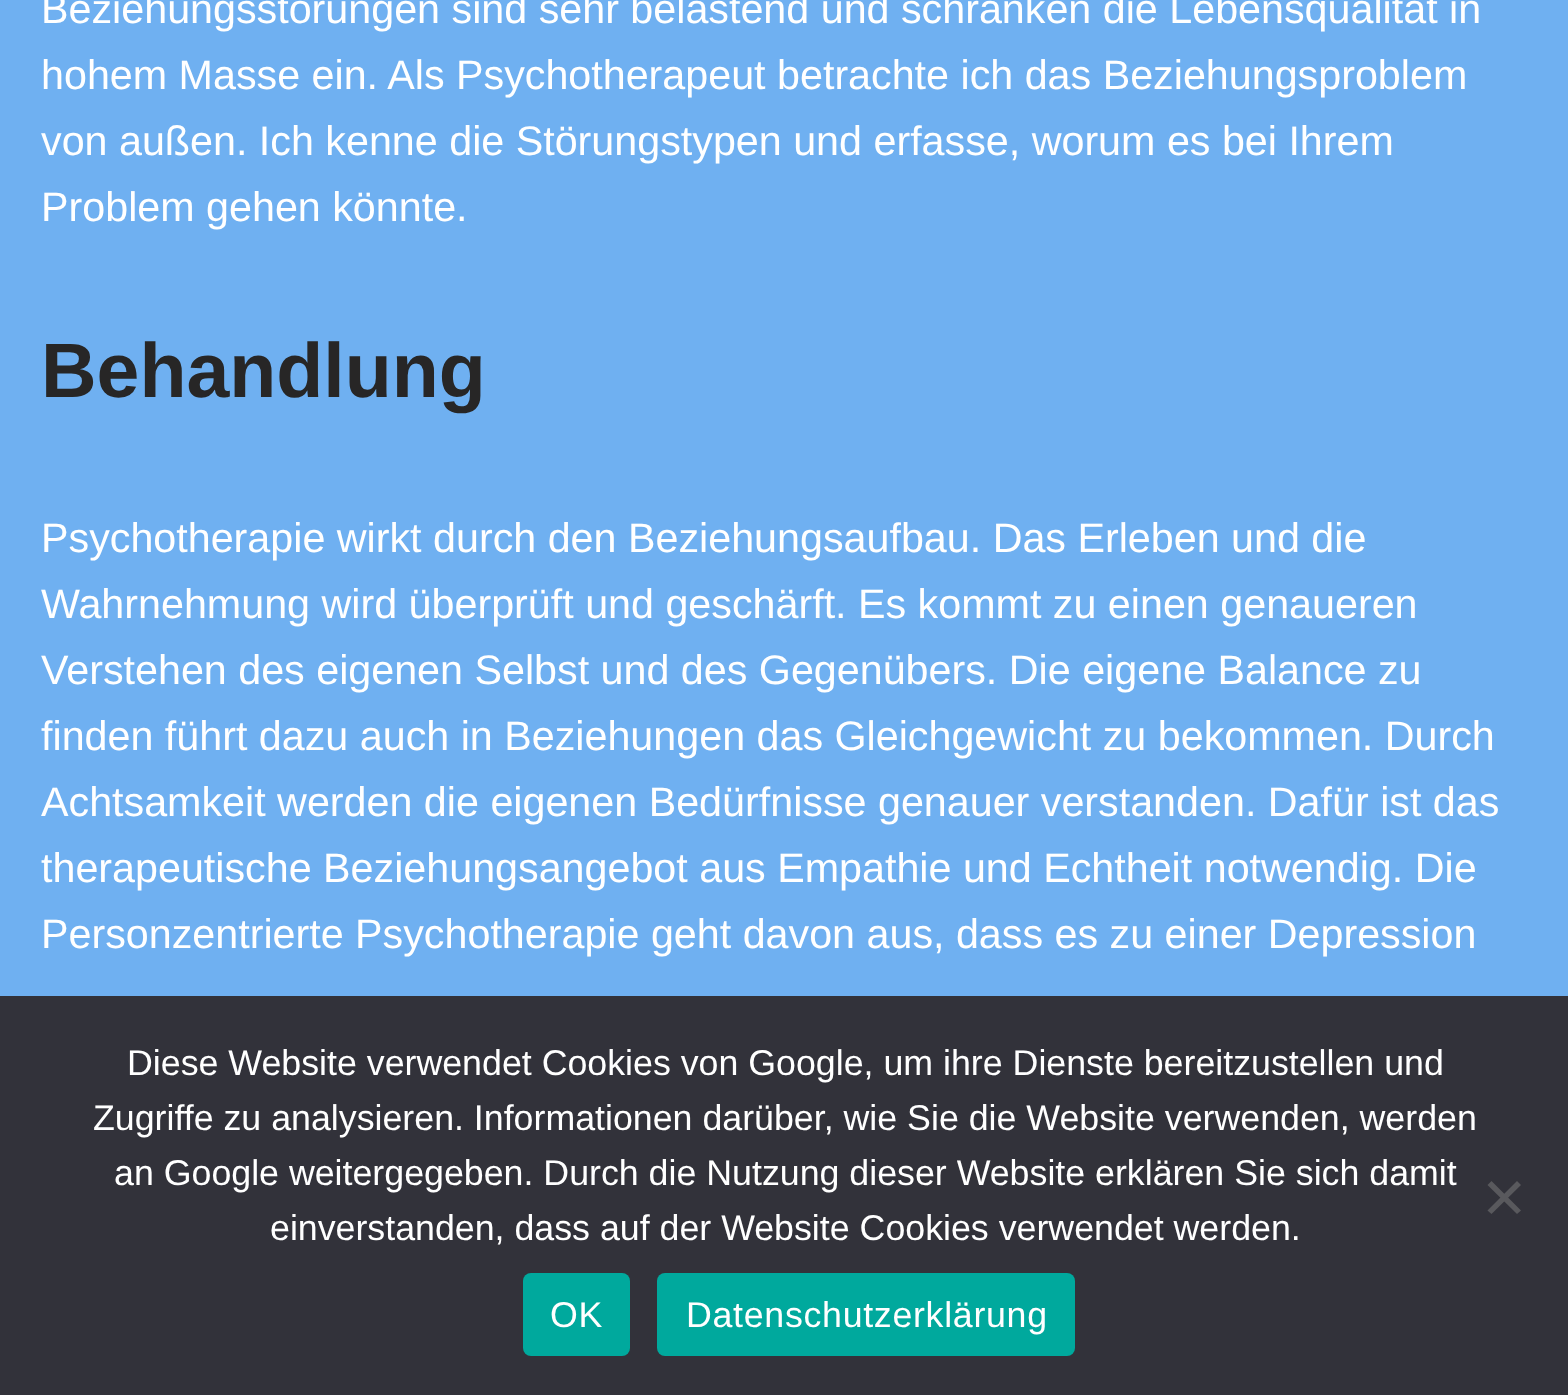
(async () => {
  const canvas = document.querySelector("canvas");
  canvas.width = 1568;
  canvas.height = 1395;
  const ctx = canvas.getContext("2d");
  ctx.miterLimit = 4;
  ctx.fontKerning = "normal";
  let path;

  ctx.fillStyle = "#6fb0f1";
  ctx.fillRect(0, 0, 1568, 1395);
  ctx.fillStyle = "#32323a";
  ctx.fillRect(0, 996, 1568, 399);
  ctx.fillStyle = "#59595d";
  path = new Path2D("M1517 1181L1521 1185L1491.5 1214L1487.5 1210.5Z");
  ctx.fill(path);
  path = new Path2D("M1487.5 1185L1491.5 1181L1521 1210.5L1517 1214Z");
  ctx.fill(path);
  ctx.fillStyle = "#00a99d";
  ctx.beginPath();
  ctx.roundRect(523, 1273, 107, 83, 8);
  ctx.fill();
  ctx.beginPath();
  ctx.roundRect(657, 1273, 418, 83, 8);
  ctx.fill();
  ctx.font = "41.25px Liberation Sans";
  ctx.fillStyle = "#ffffff";
  for (const [text, x, y] of [
    ["Beziehungsstörungen sind sehr belastend und schränken die Lebensqualität in", 41, 23],
    ["hohem Masse ein. Als Psychotherapeut betrachte ich das Beziehungsproblem", 41, 89],
    ["von außen. Ich kenne die Störungstypen und erfasse, worum es bei Ihrem", 41, 155],
    ["Problem gehen könnte.", 41, 221],
  ]) {
    ctx.fillText(text, x, y);
  }
  ctx.font = "bold 77px Liberation Sans";
  ctx.fillStyle = "#272626";
  ctx.fillText("Behandlung", 41, 397);
  ctx.font = "41.25px Liberation Sans";
  ctx.fillStyle = "#ffffff";
  for (const [text, x, y] of [
    ["Psychotherapie wirkt durch den Beziehungsaufbau. Das Erleben und die", 41, 552],
    ["Wahrnehmung wird überprüft und geschärft. Es kommt zu einen genaueren", 41, 618],
    ["Verstehen des eigenen Selbst und des Gegenübers. Die eigene Balance zu", 41, 684],
    ["finden führt dazu auch in Beziehungen das Gleichgewicht zu bekommen. Durch", 41, 750],
    ["Achtsamkeit werden die eigenen Bedürfnisse genauer verstanden. Dafür ist das", 41, 816],
    ["therapeutische Beziehungsangebot aus Empathie und Echtheit notwendig. Die", 41, 882],
    ["Personzentrierte Psychotherapie geht davon aus, dass es zu einer Depression", 41, 948],
  ]) {
    ctx.fillText(text, x, y);
  }
  ctx.font = "35.75px Liberation Sans";
  for (const [text, x, y] of [
    ["Diese Website verwendet Cookies von Google, um ihre Dienste bereitzustellen und", 127, 1075],
    ["Zugriffe zu analysieren. Informationen darüber, wie Sie die Website verwenden, werden", 93, 1130],
    ["an Google weitergegeben. Durch die Nutzung dieser Website erklären Sie sich damit", 114, 1185],
    ["einverstanden, dass auf der Website Cookies verwendet werden.", 270, 1240],
  ]) {
    ctx.fillText(text, x, y);
  }
  ctx.letterSpacing = "0.7px";
  ctx.fillText("OK", 550, 1327);
  ctx.fillText("Datenschutzerklärung", 686, 1327);
})();
